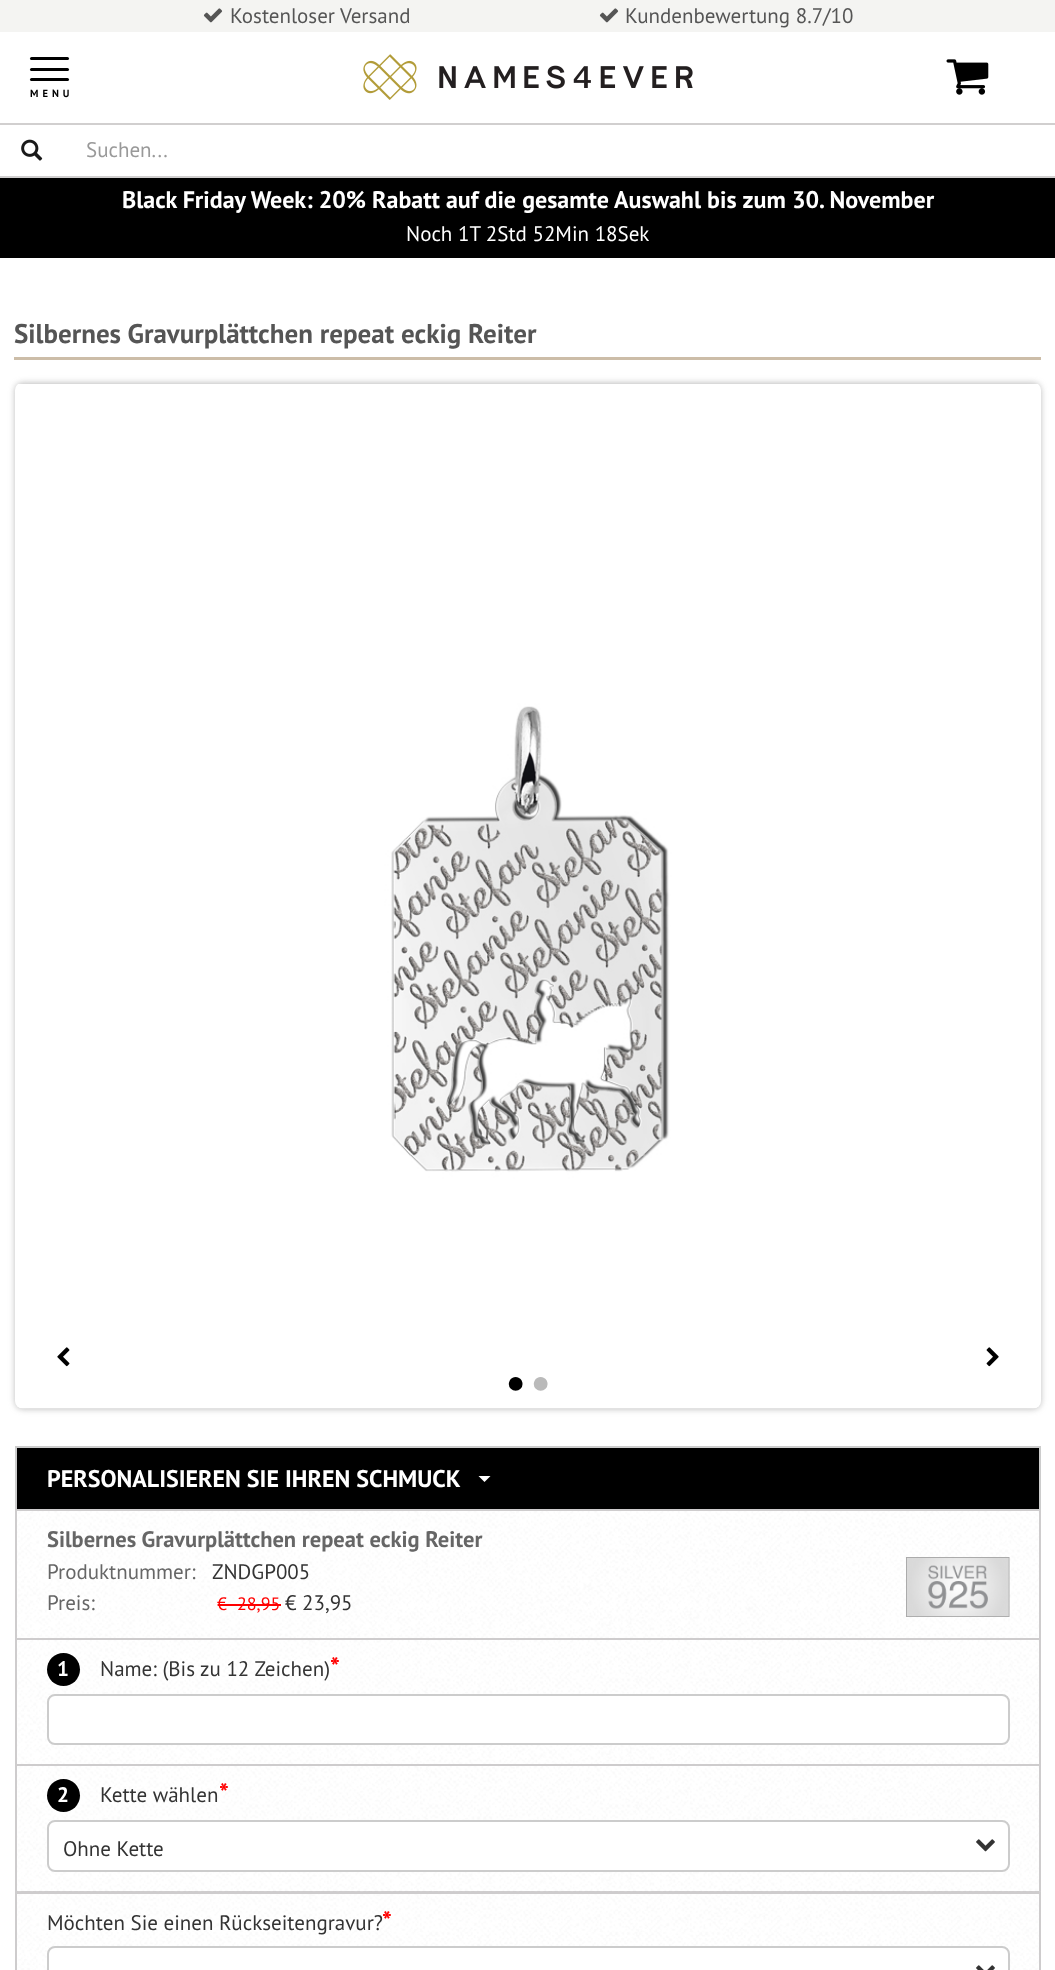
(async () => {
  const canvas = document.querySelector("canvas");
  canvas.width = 1055;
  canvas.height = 1970;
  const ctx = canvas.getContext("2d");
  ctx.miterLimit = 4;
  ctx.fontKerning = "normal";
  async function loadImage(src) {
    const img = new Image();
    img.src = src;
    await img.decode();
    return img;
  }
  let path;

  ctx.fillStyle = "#ffffff";
  ctx.fillRect(0, 0, 1055, 1970);
  ctx.fillStyle = "#f4f4f2";
  ctx.fillRect(0, 0, 1055, 32);
  ctx.drawImage(await loadImage("img/1.png"), 203, 8, 20, 15);
  ctx.drawImage(await loadImage("img/1.png"), 599, 8, 20, 15);
  ctx.fillStyle = "#000000";
  ctx.beginPath();
  ctx.roundRect(30, 57, 39, 3, 1.5);
  ctx.fill();
  ctx.beginPath();
  ctx.roundRect(30, 68, 39, 3, 1.5);
  ctx.fill();
  ctx.beginPath();
  ctx.roundRect(30, 78, 39, 3, 1.5);
  ctx.fill();
  ctx.drawImage(await loadImage("img/2.png"), 363, 54, 330, 46);
  ctx.drawImage(await loadImage("img/3.png"), 946, 59, 43, 36);
  ctx.fillStyle = "#d1cfcf";
  ctx.fillRect(0, 123, 1055, 2);
  ctx.fillRect(0, 176, 1055, 2);
  ctx.drawImage(await loadImage("img/4.png"), 21, 139, 22, 22);
  ctx.fillStyle = "#000000";
  ctx.fillRect(0, 178, 1055, 80);
  ctx.fillStyle = "#ccbda8";
  ctx.fillRect(14, 357, 1027, 3);
  ctx.fillStyle = "rgba(122, 122, 122, 0.5)";
  ctx.filter = "blur(3px)";
  ctx.beginPath();
  ctx.roundRect(15, 383, 1026, 1026, 8);
  ctx.fill();
  ctx.filter = "none";
  ctx.drawImage(await loadImage("img/5.png"), 15, 384, 1026, 1025);
  ctx.drawImage(await loadImage("img/6.png"), 57, 1347, 13, 20);
  ctx.drawImage(await loadImage("img/7.png"), 986, 1347, 13, 20);
  ctx.fillStyle = "#000000";
  ctx.beginPath();
  ctx.rect(16, 1447, 1024, 63);
  ctx.fill();
  ctx.strokeStyle = "#cccccc";
  ctx.lineWidth = 2;
  ctx.stroke();
  ctx.fillStyle = "#ffffff";
  path = new Path2D("M478.5 1476H490.5L484.5 1482Z");
  ctx.fill(path);
  ctx.drawImage(await loadImage("img/8.png"), 17, 1511, 1022, 127);
  ctx.strokeStyle = "#cecccd";
  ctx.strokeRect(16, 1510, 1024, 129);
  ctx.drawImage(await loadImage("img/9.png"), 906, 1557, 104, 60);
  ctx.fillStyle = "#ff0000";
  ctx.fillRect(218, 1604, 15, 2);
  ctx.fillRect(233, 1604, 48, 2);
  ctx.drawImage(await loadImage("img/10.png"), 17, 1640, 1022, 124);
  ctx.strokeRect(16, 1639, 1024, 126);
  ctx.fillStyle = "#000000";
  ctx.beginPath();
  ctx.arc(63.5, 1669.5, 16.5, 0, Math.PI * 2);
  ctx.fill();
  ctx.fillStyle = "#ffffff";
  ctx.beginPath();
  ctx.roundRect(48, 1695, 961, 49, 7);
  ctx.fill();
  ctx.strokeStyle = "#cccccc";
  ctx.stroke();
  ctx.drawImage(await loadImage("img/11.png"), 17, 1766, 1022, 125);
  ctx.strokeStyle = "#cecccd";
  ctx.strokeRect(16, 1765, 1024, 127);
  ctx.fillStyle = "#000000";
  ctx.beginPath();
  ctx.arc(63.5, 1795.5, 16.5, 0, Math.PI * 2);
  ctx.fill();
  ctx.fillStyle = "#ffffff";
  ctx.beginPath();
  ctx.roundRect(48, 1821, 961, 50, 7);
  ctx.fill();
  ctx.strokeStyle = "#cccccc";
  ctx.stroke();
  ctx.drawImage(await loadImage("img/12.png"), 976, 1839, 19, 13);
  ctx.drawImage(await loadImage("img/13.png"), 17, 1891, 1024, 79);
  ctx.strokeStyle = "#cecccd";
  ctx.strokeRect(16, 1893, 1024, 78);
  ctx.beginPath();
  ctx.roundRect(48, 1947, 961, 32, 7);
  ctx.fill();
  ctx.strokeStyle = "#cccccc";
  ctx.stroke();
  ctx.drawImage(await loadImage("img/14.png"), 976, 1965, 19, 5);
  ctx.font = "21px PT Sans";
  ctx.fillStyle = "#555555";
  ctx.fillText("Kostenloser Versand", 230, 23);
  ctx.fillText("Kundenbewertung 8.7/10", 625, 23);
  ctx.letterSpacing = "4px";
  ctx.font = "bold 10.5px PT Sans";
  ctx.fillStyle = "#000000";
  ctx.fillText("MENU", 30, 97);
  ctx.letterSpacing = "0px";
  ctx.font = "21px PT Sans";
  ctx.fillStyle = "#999999";
  ctx.fillText("Suchen...", 86, 157);
  ctx.font = "bold 24px PT Sans";
  ctx.fillStyle = "#ffffff";
  ctx.fillText("Black Friday Week: 20% Rabatt auf die gesamte Auswahl bis zum 30. November", 122, 208);
  ctx.font = "21px PT Sans";
  ctx.fillText("Noch 1T 2Std 52Min 18Sek", 406, 241);
  ctx.font = "bold 27px PT Sans";
  ctx.fillStyle = "#555555";
  ctx.fillText("Silbernes Gravurplättchen repeat eckig Reiter", 14, 343);
  ctx.font = "32px Liberation Sans";
  ctx.fillStyle = "#000000";
  ctx.fillText("●", 506, 1393);
  ctx.fillStyle = "#bababa";
  ctx.fillText("●", 531, 1393);
  ctx.font = "bold 24px PT Sans";
  ctx.fillStyle = "#ffffff";
  ctx.fillText("PERSONALISIEREN SIE IHREN SCHMUCK", 47, 1487);
  ctx.font = "bold 22.5px PT Sans";
  ctx.fillStyle = "#666666";
  ctx.fillText("Silbernes Gravurplättchen repeat eckig Reiter", 47, 1547);
  ctx.font = "21px PT Sans";
  ctx.fillText("Produktnummer:", 47, 1579);
  ctx.fillStyle = "#333333";
  ctx.fillText("ZNDGP005", 212, 1579);
  ctx.fillStyle = "#666666";
  ctx.fillText("Preis:", 47, 1610);
  ctx.font = "18px PT Sans";
  ctx.fillStyle = "#ff0000";
  ctx.fillText("€", 217, 1610);
  ctx.fillText("28,95", 237, 1610);
  ctx.font = "21px PT Sans";
  ctx.fillStyle = "#333333";
  ctx.fillText("€ 23,95", 285, 1610);
  ctx.font = "bold 21px PT Sans";
  ctx.fillStyle = "#ffffff";
  ctx.fillText("1", 57, 1676);
  ctx.font = "21px PT Sans";
  ctx.fillStyle = "#333333";
  ctx.fillText("Name: (Bis zu 12 Zeichen)", 100, 1676);
  ctx.font = "bold 26px PT Sans";
  ctx.fillStyle = "#ff0000";
  ctx.fillText("*", 330, 1676);
  ctx.font = "bold 21px PT Sans";
  ctx.fillStyle = "#ffffff";
  ctx.fillText("2", 57, 1802);
  ctx.font = "21px PT Sans";
  ctx.fillStyle = "#333333";
  ctx.fillText("Kette wählen", 100, 1802);
  ctx.font = "bold 26px PT Sans";
  ctx.fillStyle = "#ff0000";
  ctx.fillText("*", 219, 1802);
  ctx.font = "21px PT Sans";
  ctx.fillStyle = "#333333";
  ctx.fillText("Ohne Kette", 63, 1856);
  ctx.fillText("Möchten Sie einen Rückseitengravur?", 47, 1930);
  ctx.font = "bold 26px PT Sans";
  ctx.fillStyle = "#ff0000";
  ctx.fillText("*", 382, 1930);
})();
